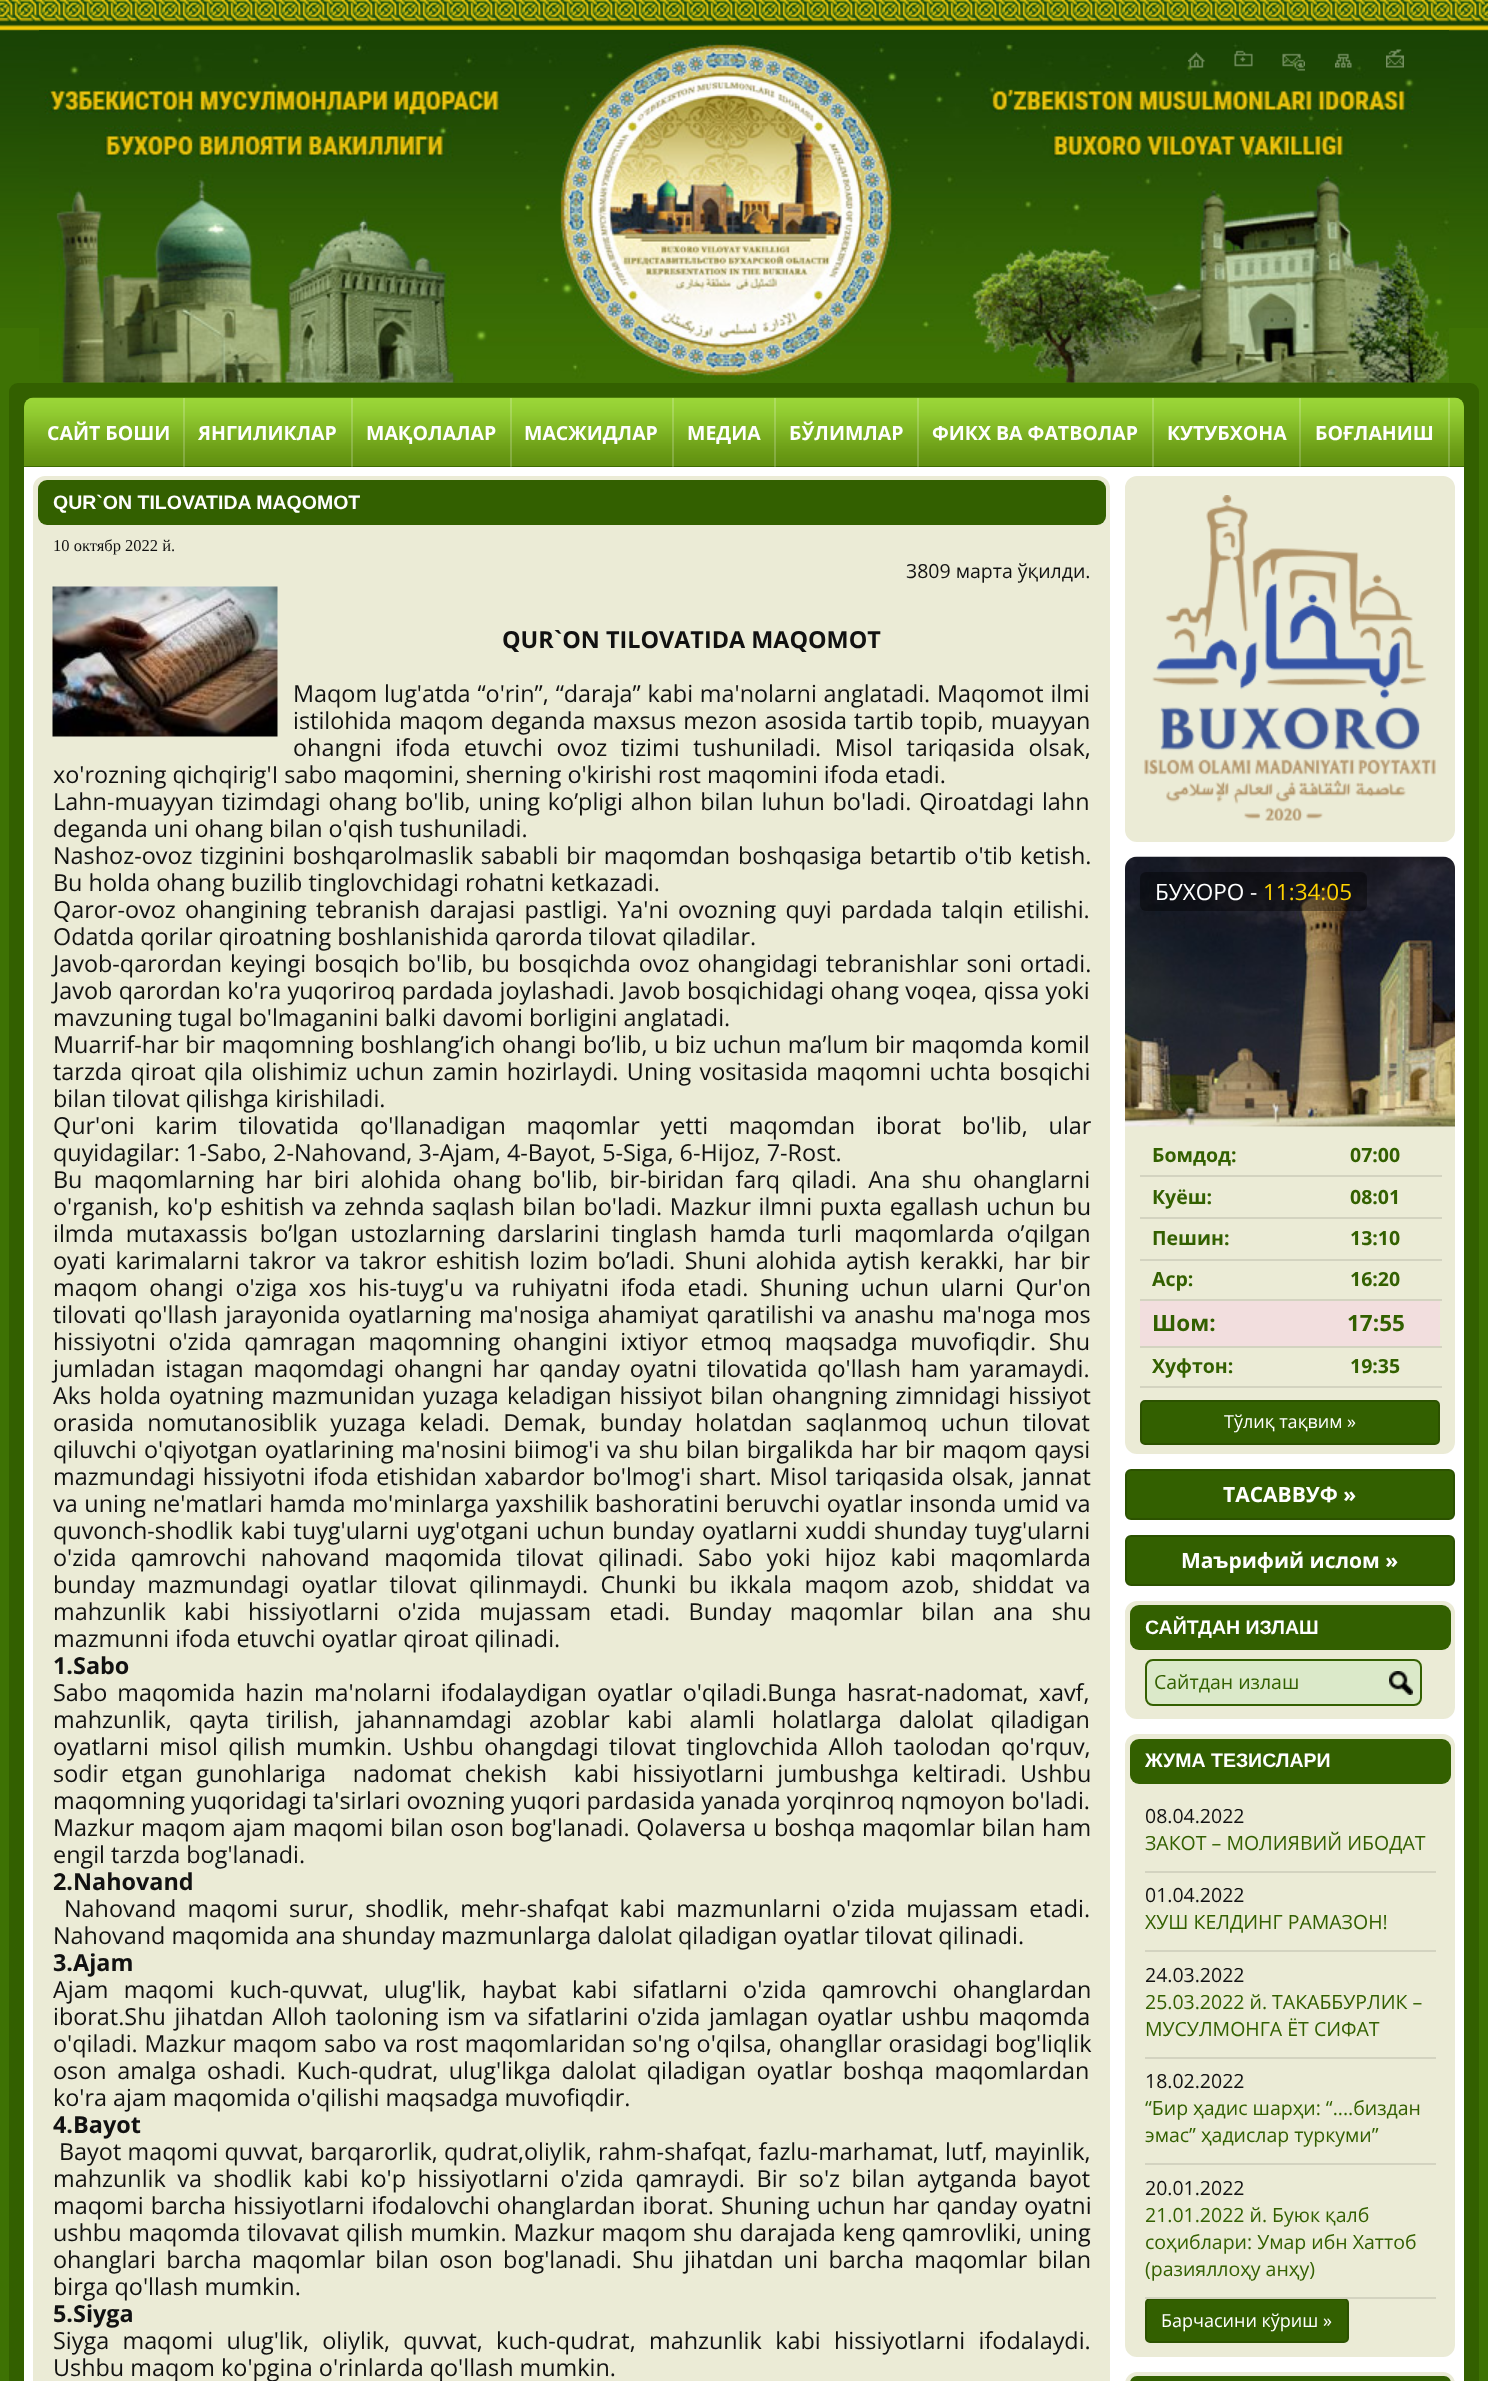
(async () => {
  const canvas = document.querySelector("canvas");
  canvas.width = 1488;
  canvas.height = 2381;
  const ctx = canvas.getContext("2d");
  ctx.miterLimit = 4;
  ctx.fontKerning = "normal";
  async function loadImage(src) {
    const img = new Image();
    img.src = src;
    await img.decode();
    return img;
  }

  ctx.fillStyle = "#3e7204";
  ctx.fillRect(0, 0, 1488, 2381);
  ctx.drawImage(await loadImage("img/1.png"), 0, 0, 1488, 328);
  ctx.drawImage(await loadImage("img/2.png"), 39, 30, 1410, 353);
  ctx.drawImage(await loadImage("img/3.png"), 1188, 52, 17, 16);
  ctx.drawImage(await loadImage("img/4.png"), 1234, 50, 19, 17);
  ctx.drawImage(await loadImage("img/5.png"), 1282, 53, 23, 18);
  ctx.drawImage(await loadImage("img/6.png"), 1335, 53, 17, 15);
  ctx.drawImage(await loadImage("img/7.png"), 1386, 49, 18, 19);
  ctx.fillStyle = "#336000";
  ctx.beginPath();
  ctx.roundRect(9, 383, 1470, 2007, 9);
  ctx.fill();
  ctx.drawImage(await loadImage("img/8.png"), 24, 397, 1440, 70);
  for (const [x, y, w, h, color] of [
    [183, 398, 2, 69, "rgba(255, 255, 255, 0.2)"],
    [351, 398, 2, 69, "rgba(255, 255, 255, 0.2)"],
    [510, 398, 2, 69, "rgba(255, 255, 255, 0.2)"],
    [672, 398, 2, 69, "rgba(255, 255, 255, 0.2)"],
    [774, 398, 2, 69, "rgba(255, 255, 255, 0.2)"],
    [917, 398, 2, 69, "rgba(255, 255, 255, 0.2)"],
    [1152, 398, 2, 69, "rgba(255, 255, 255, 0.2)"],
    [1299, 398, 2, 69, "rgba(255, 255, 255, 0.2)"],
    [1448, 398, 2, 69, "rgba(255, 255, 255, 0.2)"],
    [24, 467, 1440, 1914, "#ffffff"],
  ]) {
    ctx.fillStyle = color;
    ctx.fillRect(x, y, w, h);
  }
  ctx.fillStyle = "#ebebd6";
  ctx.beginPath();
  ctx.roundRect(35.5, 478.5, 1072, 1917, 9.5);
  ctx.fill();
  ctx.strokeStyle = "#ebebd6";
  ctx.lineWidth = 5;
  ctx.stroke();
  ctx.fillStyle = "#336000";
  ctx.beginPath();
  ctx.roundRect(38, 480, 1068, 45, 9);
  ctx.fill();
  ctx.drawImage(await loadImage("img/9.png"), 52, 586, 226, 151);
  ctx.fillStyle = "#ebebd6";
  ctx.beginPath();
  ctx.roundRect(1127.5, 478.5, 325, 361, 9.5);
  ctx.fill();
  ctx.stroke();
  ctx.drawImage(await loadImage("img/10.png"), 1144, 495, 292, 326);
  ctx.beginPath();
  ctx.roundRect(1125, 857, 330, 597, 12);
  ctx.fill();
  ctx.drawImage(await loadImage("img/11.png"), 1125, 856, 330, 271);
  ctx.fillStyle = "rgba(0, 0, 0, 0.4)";
  ctx.beginPath();
  ctx.roundRect(1140, 872, 227, 39, 6);
  ctx.fill();
  for (const [x, y, w, h, color] of [
    [1140, 1175, 302, 2, "#d3d3c0"],
    [1140, 1217, 302, 2, "#d3d3c0"],
    [1140, 1259, 302, 2, "#d3d3c0"],
    [1140, 1299, 302, 2, "#d3d3c0"],
    [1140, 1301, 300, 45, "#f2dede"],
    [1140, 1346, 302, 2, "#d3d3c0"],
    [1140, 1386, 302, 2, "#d3d3c0"],
  ]) {
    ctx.fillStyle = color;
    ctx.fillRect(x, y, w, h);
  }
  ctx.fillStyle = "#336000";
  ctx.beginPath();
  ctx.roundRect(1141, 1401, 298, 43, 4);
  ctx.fill();
  ctx.strokeStyle = "#2c5200";
  ctx.lineWidth = 2;
  ctx.stroke();
  ctx.beginPath();
  ctx.roundRect(1126, 1470, 328, 49, 5);
  ctx.fill();
  ctx.stroke();
  ctx.beginPath();
  ctx.roundRect(1126, 1536, 328, 49, 5);
  ctx.fill();
  ctx.stroke();
  ctx.fillStyle = "#ebebd6";
  ctx.beginPath();
  ctx.roundRect(1127.5, 1603.5, 325, 113, 9.5);
  ctx.fill();
  ctx.strokeStyle = "#ebebd6";
  ctx.lineWidth = 5;
  ctx.stroke();
  ctx.fillStyle = "#336000";
  ctx.beginPath();
  ctx.roundRect(1130, 1605, 321, 45, 9);
  ctx.fill();
  ctx.fillStyle = "#dbe9c9";
  ctx.beginPath();
  ctx.roundRect(1146, 1660, 275, 45, 7);
  ctx.fill();
  ctx.strokeStyle = "#346001";
  ctx.lineWidth = 2;
  ctx.stroke();
  ctx.drawImage(await loadImage("img/12.png"), 1389, 1671, 24, 24);
  ctx.fillStyle = "#ebebd6";
  ctx.beginPath();
  ctx.roundRect(1127.5, 1736.5, 325, 618, 9.5);
  ctx.fill();
  ctx.strokeStyle = "#ebebd6";
  ctx.lineWidth = 5;
  ctx.stroke();
  ctx.fillStyle = "#336000";
  ctx.beginPath();
  ctx.roundRect(1130, 1739, 321, 45, 9);
  ctx.fill();
  for (const [x, y, w, h, color] of [
    [1145, 1871, 291, 2, "#d3d3c0"],
    [1145, 1950, 291, 2, "#d3d3c0"],
    [1145, 2057, 291, 2, "#d3d3c0"],
    [1145, 2163, 291, 2, "#d3d3c0"],
  ]) {
    ctx.fillStyle = color;
    ctx.fillRect(x, y, w, h);
  }
  ctx.fillStyle = "#336000";
  ctx.beginPath();
  ctx.roundRect(1146, 2299, 202, 43, 4);
  ctx.fill();
  ctx.strokeStyle = "#2c5200";
  ctx.lineWidth = 2;
  ctx.stroke();
  ctx.fillStyle = "#d3d3c0";
  ctx.fillRect(1145, 2297, 291, 2);
  ctx.beginPath();
  ctx.roundRect(1127.5, 2374.5, 325, 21, 9.5);
  ctx.strokeStyle = "#ebebd6";
  ctx.lineWidth = 5;
  ctx.stroke();
  ctx.fillStyle = "#336000";
  ctx.beginPath();
  ctx.roundRect(1130, 2376, 321, 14, 9);
  ctx.fill();
  ctx.font = "bold 19.5px Open Sans";
  ctx.fillStyle = "#ffffff";
  for (const [text, x, y] of [
    ["САЙТ БОШИ", 47, 440],
    ["ЯНГИЛИКЛАР", 198, 440],
    ["МАҚОЛАЛАР", 366, 440],
    ["МАСЖИДЛАР", 524, 440],
    ["МЕДИА", 687, 440],
    ["БЎЛИМЛАР", 789, 440],
    ["ФИКХ ВА ФАТВОЛАР", 932, 440],
    ["КУТУБХОНА", 1167, 440],
    ["БОҒЛАНИШ", 1315, 440],
  ]) {
    ctx.fillText(text, x, y);
  }
  ctx.font = "bold 19.5px Liberation Sans";
  ctx.fillText("QUR`ON TILOVATIDA MAQOMOT", 53, 509);
  ctx.font = "16.5px Liberation Serif";
  ctx.fillStyle = "#111111";
  ctx.fillText("10 октябр 2022 й.", 53, 551);
  ctx.font = "19.5px Open Sans";
  ctx.fillText("3809 марта ўқилди.", 906, 578);
  ctx.font = "bold 23.4px Open Sans";
  ctx.fillText("QUR`ON TILOVATIDA MAQOMOT", 502, 648);
  ctx.wordSpacing = "0.75px";
  ctx.font = "23.4px Open Sans";
  ctx.fillText("Maqom lug'atda “o'rin”, “daraja” kabi ma'nolarni anglatadi. Maqomot ilmi", 293, 702);
  ctx.wordSpacing = "1px";
  ctx.fillText("istilohida maqom deganda maxsus mezon asosida tartib topib, muayyan", 293, 729);
  ctx.wordSpacing = "7.5px";
  ctx.fillText("ohangni ifoda etuvchi ovoz tizimi tushuniladi. Misol tariqasida olsak,", 293, 756);
  ctx.wordSpacing = "0px";
  ctx.fillText("xo'rozning qichqirig'I sabo maqomini, sherning o'kirishi rost maqomini ifoda etadi.", 53, 783);
  ctx.wordSpacing = "1.75px";
  ctx.fillText("Lahn-muayyan tizimdagi ohang bo'lib, uning ko’pligi alhon bilan luhun bo'ladi. Qiroatdagi lahn", 53, 810);
  ctx.wordSpacing = "0px";
  ctx.fillText("deganda uni ohang bilan o'qish tushuniladi.", 53, 837);
  ctx.wordSpacing = "1.75px";
  ctx.fillText("Nashoz-ovoz tizginini boshqarolmaslik sababli bir maqomdan boshqasiga betartib o'tib ketish.", 53, 864);
  ctx.wordSpacing = "0px";
  ctx.fillText("Bu holda ohang buzilib tinglovchidagi rohatni ketkazadi.", 53, 891);
  ctx.wordSpacing = "3.25px";
  ctx.fillText("Qaror-ovoz ohangining tebranish darajasi pastligi. Ya'ni ovozning quyi pardada talqin etilishi.", 53, 918);
  ctx.wordSpacing = "0px";
  ctx.fillText("Odatda qorilar qiroatning boshlanishida qarorda tilovat qiladilar.", 53, 945);
  ctx.wordSpacing = "2px";
  ctx.fillText("Javob-qarordan keyingi bosqich bo'lib, bu bosqichda ovoz ohangidagi tebranishlar soni ortadi.", 53, 972);
  ctx.wordSpacing = "0.25px";
  ctx.fillText("Javob qarordan ko'ra yuqoriroq pardada joylashadi. Javob bosqichidagi ohang voqea, qissa yoki", 53, 999);
  ctx.wordSpacing = "0px";
  ctx.fillText("mavzuning tugal bo'lmaganini balki davomi borligini anglatadi.", 53, 1026);
  ctx.wordSpacing = "0.5px";
  ctx.fillText("Muarrif-har bir maqomning boshlang’ich ohangi bo’lib, u biz uchun ma’lum bir maqomda komil", 53, 1053);
  ctx.wordSpacing = "2.25px";
  ctx.fillText("tarzda qiroat qila olishimiz uchun zamin hozirlaydi. Uning vositasida maqomni uchta bosqichi", 53, 1080);
  ctx.wordSpacing = "0px";
  ctx.fillText("bilan tilovat qilishga kirishiladi.", 53, 1107);
  ctx.wordSpacing = "14.75px";
  ctx.fillText("Qur'oni karim tilovatida qo'llanadigan maqomlar yetti maqomdan iborat bo'lib, ular", 53, 1134);
  ctx.wordSpacing = "0px";
  ctx.fillText("quyidagilar: 1-Sabo, 2-Nahovand, 3-Ajam, 4-Bayot, 5-Siga, 6-Hijoz, 7-Rost.", 53, 1161);
  ctx.wordSpacing = "5.25px";
  ctx.fillText("Bu maqomlarning har biri alohida ohang bo'lib, bir-biridan farq qiladi. Ana shu ohanglarni", 53, 1188);
  ctx.wordSpacing = "1.5px";
  ctx.fillText("o'rganish, ko'p eshitish va zehnda saqlash bilan bo'ladi. Mazkur ilmni puxta egallash uchun bu", 53, 1215);
  ctx.wordSpacing = "6px";
  ctx.fillText("ilmda mutaxassis bo’lgan ustozlarning darslarini tinglash hamda turli maqomlarda o’qilgan", 53, 1242);
  ctx.wordSpacing = "3.4px";
  ctx.fillText("oyati karimalarni takror va takror eshitish lozim bo’ladi. Shuni alohida aytish kerakki, har bir", 53, 1269);
  ctx.wordSpacing = "5.6px";
  ctx.fillText("maqom ohangi o'ziga xos his-tuyg'u va ruhiyatni ifoda etadi. Shuning uchun ularni Qur'on", 53, 1296);
  ctx.wordSpacing = "1.75px";
  ctx.fillText("tilovati qo'llash jarayonida oyatlarning ma'nosiga ahamiyat qaratilishi va anashu ma'noga mos", 53, 1323);
  ctx.wordSpacing = "6.5px";
  ctx.fillText("hissiyotni o'zida qamragan maqomning ohangini ixtiyor etmoq maqsadga muvofiqdir. Shu", 53, 1350);
  ctx.wordSpacing = "3.75px";
  ctx.fillText("jumladan istagan maqomdagi ohangni har qanday oyatni tilovatida qo'llash ham yaramaydi.", 53, 1377);
  ctx.wordSpacing = "2px";
  ctx.fillText("Aks holda oyatning mazmunidan yuzaga keladigan hissiyot bilan ohangning zimnidagi hissiyot", 53, 1404);
  ctx.wordSpacing = "7.25px";
  ctx.fillText("orasida nomutanosiblik yuzaga keladi. Demak, bunday holatdan saqlanmoq uchun tilovat", 53, 1431);
  ctx.wordSpacing = "1.25px";
  ctx.fillText("qiluvchi o'qiyotgan oyatlarining ma'nosini biimog'i va shu bilan birgalikda har bir maqom qaysi", 53, 1458);
  ctx.wordSpacing = "1.75px";
  ctx.fillText("mazmundagi hissiyotni ifoda etishidan xabardor bo'lmog'i shart. Misol tariqasida olsak, jannat", 53, 1485);
  ctx.wordSpacing = "0.6px";
  ctx.fillText("va uning ne'matlari hamda mo'minlarga yaxshilik bashoratini beruvchi oyatlar insonda umid va", 53, 1512);
  ctx.wordSpacing = "1.5px";
  ctx.fillText("quvonch-shodlik kabi tuyg'ularni uyg'otgani uchun bunday oyatlarni xuddi shunday tuyg'ularni", 53, 1539);
  ctx.wordSpacing = "8.25px";
  ctx.fillText("o'zida qamrovchi nahovand maqomida tilovat qilinadi. Sabo yoki hijoz kabi maqomlarda", 53, 1566);
  ctx.wordSpacing = "6.25px";
  ctx.fillText("bunday mazmundagi oyatlar tilovat qilinmaydi. Chunki bu ikkala maqom azob, shiddat va", 53, 1593);
  ctx.wordSpacing = "12.25px";
  ctx.fillText("mahzunlik kabi hissiyotlarni o'zida mujassam etadi. Bunday maqomlar bilan ana shu", 53, 1620);
  ctx.wordSpacing = "0px";
  ctx.fillText("mazmunni ifoda etuvchi oyatlar qiroat qilinadi.", 53, 1647);
  ctx.font = "bold 23.4px Open Sans";
  ctx.fillText("1.Sabo", 53, 1674);
  ctx.wordSpacing = "4px";
  ctx.font = "23.4px Open Sans";
  ctx.fillText("Sabo maqomida hazin ma'nolarni ifodalaydigan oyatlar o'qiladi.Bunga hasrat-nadomat, xavf,", 53, 1701);
  ctx.wordSpacing = "11px";
  ctx.fillText("mahzunlik, qayta tirilish, jahannamdagi azoblar kabi alamli holatlarga dalolat qiladigan", 53, 1728);
  ctx.wordSpacing = "4.25px";
  ctx.fillText("oyatlarni misol qilish mumkin. Ushbu ohangdagi tilovat tinglovchida Alloh taolodan qo'rquv,", 53, 1755);
  ctx.wordSpacing = "7.25px";
  ctx.fillText("sodir etgan gunohlariga  nadomat chekish  kabi hissiyotlarni jumbushga keltiradi. Ushbu", 53, 1782);
  ctx.wordSpacing = "0px";
  ctx.fillText("maqomning yuqoridagi ta'sirlari ovozning yuqori pardasida yanada yorqinroq nqmoyon bo'ladi.", 53, 1809);
  ctx.wordSpacing = "0.7px";
  ctx.fillText("Mazkur maqom ajam maqomi bilan oson bog'lanadi. Qolaversa u boshqa maqomlar bilan ham", 53, 1836);
  ctx.wordSpacing = "0px";
  ctx.fillText("engil tarzda bog'lanadi.", 53, 1863);
  ctx.font = "bold 23.4px Open Sans";
  ctx.fillText("2.Nahovand", 53, 1890);
  ctx.wordSpacing = "5px";
  ctx.font = "23.4px Open Sans";
  ctx.fillText("Nahovand maqomi surur, shodlik, mehr-shafqat kabi mazmunlarni o'zida mujassam etadi.", 64, 1917);
  ctx.wordSpacing = "0px";
  ctx.fillText("Nahovand maqomida ana shunday mazmunlarga dalolat qiladigan oyatlar tilovat qilinadi.", 53, 1944);
  ctx.font = "bold 23.4px Open Sans";
  ctx.fillText("3.Ajam", 53, 1971);
  ctx.wordSpacing = "9.25px";
  ctx.font = "23.4px Open Sans";
  ctx.fillText("Ajam maqomi kuch-quvvat, ulug'lik, haybat kabi sifatlarni o'zida qamrovchi ohanglardan", 53, 1998);
  ctx.wordSpacing = "2.5px";
  ctx.fillText("iborat.Shu jihatdan Alloh taoloning ism va sifatlarini o'zida jamlagan oyatlar ushbu maqomda", 53, 2025);
  ctx.wordSpacing = "0.75px";
  ctx.fillText("o'qiladi. Mazkur maqom sabo va rost maqomlaridan so'ng o'qilsa, ohangllar orasidagi bog'liqlik", 53, 2052);
  ctx.wordSpacing = "4.5px";
  ctx.fillText("oson amalga oshadi. Kuch-qudrat, ulug'likga dalolat qiladigan oyatlar boshqa maqomlardan", 53, 2079);
  ctx.wordSpacing = "0px";
  ctx.fillText("ko'ra ajam maqomida o'qilishi maqsadga muvofiqdir.", 53, 2106);
  ctx.font = "bold 23.4px Open Sans";
  ctx.fillText("4.Bayot", 53, 2133);
  ctx.wordSpacing = "0.25px";
  ctx.font = "23.4px Open Sans";
  ctx.fillText("Bayot maqomi quvvat, barqarorlik, qudrat,oliylik, rahm-shafqat, fazlu-marhamat, lutf, mayinlik,", 59, 2160);
  ctx.wordSpacing = "5.5px";
  ctx.fillText("mahzunlik va shodlik kabi ko'p hissiyotlarni o'zida qamraydi. Bir so'z bilan aytganda bayot", 53, 2187);
  ctx.wordSpacing = "1px";
  ctx.fillText("maqomi barcha hissiyotlarni ifodalovchi ohanglardan iborat. Shuning uchun har qanday oyatni", 53, 2214);
  ctx.wordSpacing = "0.75px";
  ctx.fillText("ushbu maqomda tilovavat qilish mumkin. Mazkur maqom shu darajada keng qamrovliki, uning", 53, 2241);
  ctx.wordSpacing = "4.25px";
  ctx.fillText("ohanglari barcha maqomlar bilan oson bog'lanadi. Shu jihatdan uni barcha maqomlar bilan", 53, 2268);
  ctx.wordSpacing = "0px";
  ctx.fillText("birga qo'llash mumkin.", 53, 2295);
  ctx.font = "bold 23.4px Open Sans";
  ctx.fillText("5.Siyga", 53, 2322);
  ctx.wordSpacing = "7.25px";
  ctx.font = "23.4px Open Sans";
  ctx.fillText("Siyga maqomi ulug'lik, oliylik, quvvat, kuch-qudrat, mahzunlik kabi hissiyotlarni ifodalaydi.", 53, 2349);
  ctx.wordSpacing = "0px";
  ctx.fillText("Ushbu maqom ko'pgina o'rinlarda qo'llash mumkin.", 53, 2376);
  ctx.font = "22.5px Open Sans";
  ctx.fillStyle = "#ffffff";
  ctx.fillText("БУХОРО -", 1155, 900);
  ctx.fillStyle = "#ffd200";
  ctx.fillText("11:34:05", 1263, 900);
  ctx.font = "bold 19.5px Open Sans";
  ctx.fillStyle = "#336000";
  for (const [text, x, y] of [
    ["Бомдод:", 1152, 1162],
    ["07:00", 1350, 1162],
    ["Куёш:", 1152, 1204],
    ["08:01", 1350, 1204],
    ["Пешин:", 1152, 1245],
    ["13:10", 1350, 1245],
    ["Аср:", 1152, 1286],
    ["16:20", 1350, 1286],
  ]) {
    ctx.fillText(text, x, y);
  }
  ctx.font = "bold 22.5px Open Sans";
  ctx.fillText("Шом:", 1152, 1331);
  ctx.fillText("17:55", 1347, 1331);
  ctx.font = "bold 19.5px Open Sans";
  ctx.fillText("Хуфтон:", 1152, 1373);
  ctx.fillText("19:35", 1350, 1373);
  ctx.font = "18px Open Sans";
  ctx.fillStyle = "#ffffff";
  ctx.fillText("Тўлиқ тақвим »", 1224, 1428);
  ctx.font = "bold 21px Open Sans";
  ctx.fillText("ТАСАВВУФ »", 1223, 1502);
  ctx.fillText("Маърифий ислом »", 1181, 1568);
  ctx.font = "bold 19.5px Liberation Sans";
  ctx.fillText("САЙТДАН ИЗЛАШ", 1145, 1634);
  ctx.font = "19.5px Open Sans";
  ctx.fillStyle = "#336000";
  ctx.fillText("Сайтдан излаш", 1154, 1689);
  ctx.font = "bold 19.5px Liberation Sans";
  ctx.fillStyle = "#ffffff";
  ctx.fillText("ЖУМА ТЕЗИСЛАРИ", 1145, 1767);
  ctx.font = "19.5px Open Sans";
  ctx.fillStyle = "#111111";
  ctx.fillText("08.04.2022", 1145, 1823);
  ctx.fillStyle = "#336000";
  ctx.fillText("ЗАКОТ – МОЛИЯВИЙ ИБОДАТ", 1145, 1850);
  ctx.fillStyle = "#111111";
  ctx.fillText("01.04.2022", 1145, 1902);
  ctx.fillStyle = "#336000";
  ctx.fillText("ХУШ КЕЛДИНГ РАМАЗОН!", 1145, 1929);
  ctx.fillStyle = "#111111";
  ctx.fillText("24.03.2022", 1145, 1982);
  ctx.fillStyle = "#336000";
  ctx.fillText("25.03.2022 й. ТАКАББУРЛИК –", 1145, 2009);
  ctx.fillText("МУСУЛМОНГА ЁТ СИФАТ", 1145, 2036);
  ctx.fillStyle = "#111111";
  ctx.fillText("18.02.2022", 1145, 2088);
  ctx.fillStyle = "#336000";
  ctx.fillText("“Бир ҳадис шарҳи: “....биздан", 1145, 2115);
  ctx.fillText("эмас” ҳадислар туркуми”", 1145, 2142);
  ctx.fillStyle = "#111111";
  ctx.fillText("20.01.2022", 1145, 2195);
  ctx.fillStyle = "#336000";
  for (const [text, x, y] of [
    ["21.01.2022 й. Буюк қалб", 1145, 2222],
    ["соҳиблари: Умар ибн Хаттоб", 1145, 2249],
    ["(разияллоҳу анҳу)", 1145, 2276],
  ]) {
    ctx.fillText(text, x, y);
  }
  ctx.font = "18px Open Sans";
  ctx.fillStyle = "#ffffff";
  ctx.fillText("Барчасини кўриш »", 1161, 2327);
})();
